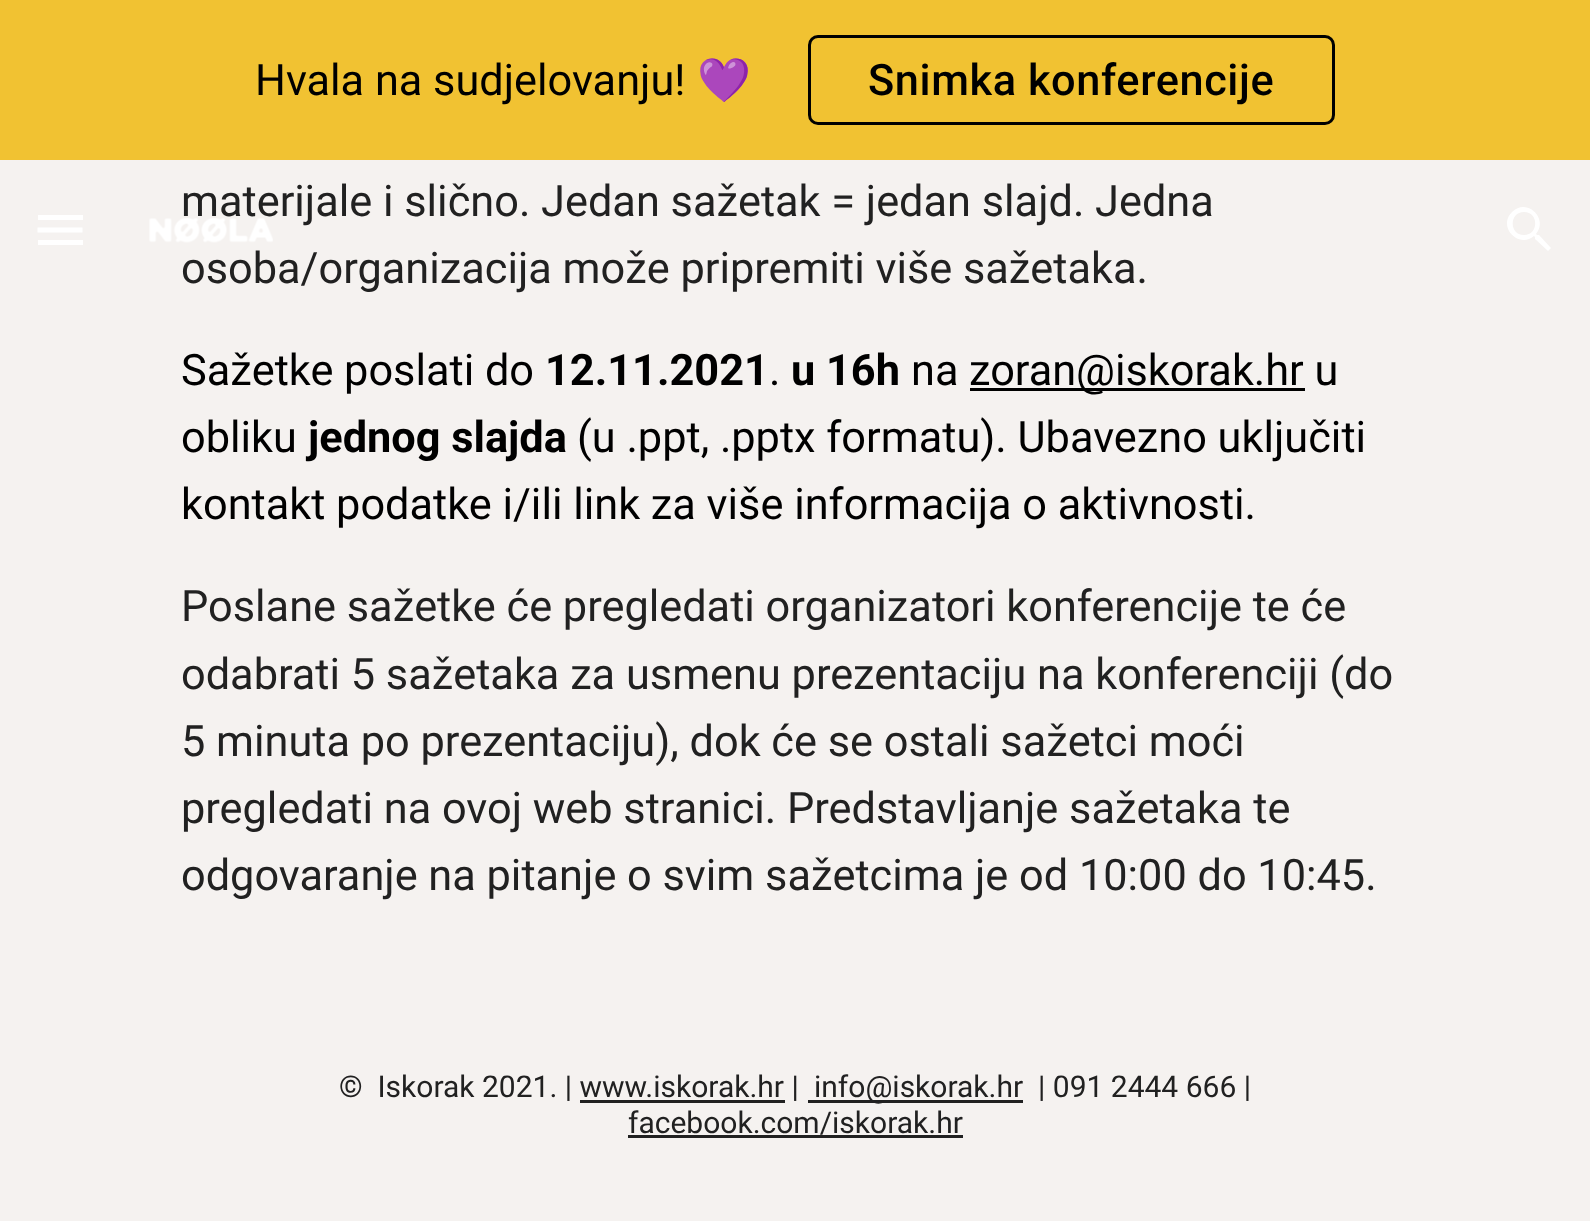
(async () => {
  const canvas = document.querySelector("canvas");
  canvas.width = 1590;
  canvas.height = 1221;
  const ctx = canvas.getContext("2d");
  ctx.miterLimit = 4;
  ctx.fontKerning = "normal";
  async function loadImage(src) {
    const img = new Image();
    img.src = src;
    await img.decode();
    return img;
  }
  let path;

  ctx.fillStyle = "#f5f2f0";
  ctx.fillRect(0, 0, 1590, 1221);
  ctx.fillStyle = "#f1c232";
  ctx.fillRect(0, 0, 1590, 160);
  ctx.beginPath();
  ctx.roundRect(809.5, 36.5, 524, 87, 8.5);
  ctx.strokeStyle = "#000000";
  ctx.lineWidth = 3;
  ctx.stroke();
  ctx.fillStyle = "#ffffff";
  ctx.fillRect(38, 215, 45, 5);
  path = new Path2D("M37.5 230H82.5");
  ctx.strokeStyle = "#ffffff";
  ctx.lineWidth = 5;
  ctx.stroke(path);
  ctx.fillRect(38, 240, 45, 5);
  path = new Path2D("M1539 235H1537L1536 234C1549 219 1527 197 1512 212C1497 227 1519 249 1534 236L1535 237V239L1548 251L1551 248ZM1524 235C1509 235 1509 212 1524 212C1539 212 1539 235 1524 235Z");
  ctx.fill(path);
  for (const [x, y, w, h, color] of [
    [970, 388, 335, 3, "#000000"],
    [808, 1100, 215, 3, "#212121"],
    [580, 1100, 205, 3, "#212121"],
    [628, 1135, 335, 3, "#212121"],
  ]) {
    ctx.fillStyle = color;
    ctx.fillRect(x, y, w, h);
  }
  ctx.font = "43.3px Roboto";
  ctx.fillStyle = "#000000";
  ctx.fillText("Hvala na sudjelovanju!", 255, 95);
  ctx.font = "43.3px Noto Color Emoji";
  ctx.fillText("💜", 697, 95);
  ctx.letterSpacing = "0.6px";
  ctx.font = "500 43.3px Roboto";
  ctx.fillText("Snimka konferencije", 868, 95);
  ctx.letterSpacing = "0px";
  ctx.font = "43.3px Roboto";
  ctx.fillStyle = "#212121";
  ctx.fillText("materijale i slično. Jedan sažetak = jedan slajd. Jedna", 181, 216);
  ctx.drawImage(await loadImage("img/1.png"), 149, 218, 124, 25);
  ctx.fillText("osoba/organizacija može pripremiti više sažetaka.", 181, 283);
  ctx.fillStyle = "#000000";
  ctx.fillText("Sažetke poslati do", 181, 385);
  ctx.font = "bold 43.3px Roboto";
  ctx.fillText("12.11.2021", 545, 385);
  ctx.font = "43.3px Roboto";
  ctx.fillText(".", 769, 385);
  ctx.font = "bold 43.3px Roboto";
  ctx.fillText("u 16h", 791, 385);
  ctx.font = "43.3px Roboto";
  for (const [text, x, y] of [
    ["na", 911, 385],
    ["zoran@iskorak.hr u", 969, 385],
    ["obliku", 181, 452],
  ]) {
    ctx.fillText(text, x, y);
  }
  ctx.font = "bold 43.3px Roboto";
  ctx.fillText("jednog slajda", 308, 452);
  ctx.font = "43.3px Roboto";
  ctx.fillText("(u .ppt, .pptx formatu). Ubavezno uključiti", 577, 452);
  ctx.fillText("kontakt podatke i/ili link za više informacija o aktivnosti.", 181, 519);
  ctx.fillStyle = "#212121";
  for (const [text, x, y] of [
    ["Poslane sažetke će pregledati organizatori konferencije te će", 181, 621],
    ["odabrati 5 sažetaka za usmenu prezentaciju na konferenciji (do", 181, 689],
    ["5 minuta po prezentaciju), dok će se ostali sažetci moći", 181, 756],
    ["pregledati na ovoj web stranici. Predstavljanje sažetaka te", 181, 823],
    ["odgovaranje na pitanje o svim sažetcima je od 10:00 do 10:45.", 181, 890],
  ]) {
    ctx.fillText(text, x, y);
  }
  ctx.font = "30px Roboto";
  for (const [text, x, y] of [
    ["©  Iskorak 2021. | www.iskorak.hr |", 339, 1097],
    ["info@iskorak.hr", 814, 1097],
    ["| 091 2444 666 |", 1038, 1097],
    ["facebook.com/iskorak.hr", 628, 1133],
  ]) {
    ctx.fillText(text, x, y);
  }
})();
